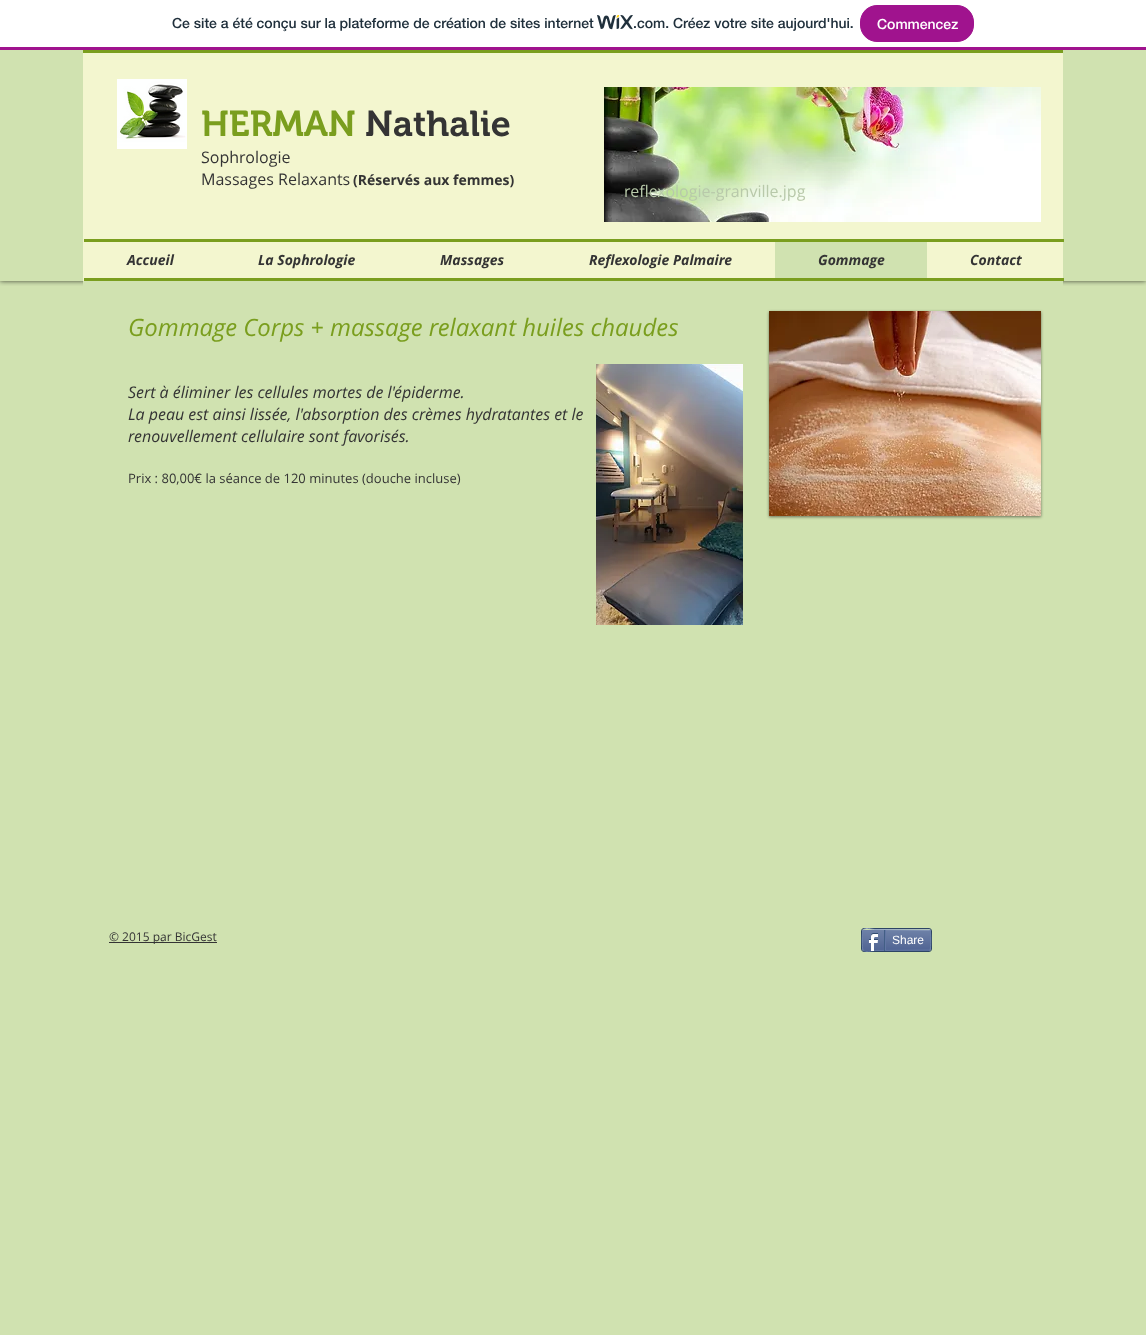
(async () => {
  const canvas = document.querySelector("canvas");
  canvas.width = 1146;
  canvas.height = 1335;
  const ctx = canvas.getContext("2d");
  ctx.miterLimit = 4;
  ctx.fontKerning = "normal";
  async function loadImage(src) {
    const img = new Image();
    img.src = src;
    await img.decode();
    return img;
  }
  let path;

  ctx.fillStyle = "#d0e2b0";
  ctx.fillRect(0, 0, 1146, 1335);
  ctx.save();
  ctx.beginPath();
  ctx.rect(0, 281, 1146, 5);
  ctx.clip();
  ctx.fillStyle = "rgba(0, 0, 0, 0.7)";
  ctx.filter = "blur(2.5px)";
  ctx.beginPath();
  ctx.rect(0, 50, 1146, 231);
  ctx.fill();
  ctx.filter = "none";
  ctx.restore();
  ctx.fillStyle = "#ffffff";
  ctx.fillRect(0, 0, 1146, 47);
  ctx.fillStyle = "#a0138e";
  ctx.fillRect(0, 47, 1146, 3);
  ctx.drawImage(await loadImage("img/1.png"), 597, 15, 36, 15);
  ctx.beginPath();
  ctx.roundRect(860.5, 5.5, 113, 36, 16.5);
  ctx.fill();
  ctx.strokeStyle = "#a0138e";
  ctx.stroke();
  ctx.fillStyle = "#f3f6cf";
  ctx.fillRect(83, 53, 980, 228);
  ctx.fillStyle = "#7a9e1e";
  ctx.fillRect(83, 50, 980, 3);
  ctx.drawImage(await loadImage("img/2.png"), 117, 79, 70, 70);
  ctx.drawImage(await loadImage("img/3.png"), 604, 87, 437, 135);
  for (const [x, y, w, h, color] of [
    [84, 239, 980, 3, "#7a9e1e"],
    [84, 278, 980, 3, "#7a9e1e"],
    [775, 242, 152, 36, "#d0e2b0"],
    [83, 281, 980, 5, "#d0e2b0"],
  ]) {
    ctx.fillStyle = color;
    ctx.fillRect(x, y, w, h);
  }
  ctx.fillStyle = "rgba(0, 0, 0, 0.5)";
  ctx.filter = "blur(1.5px)";
  ctx.beginPath();
  ctx.rect(769, 312, 272, 205);
  ctx.fill();
  ctx.filter = "none";
  ctx.drawImage(await loadImage("img/4.png"), 769, 311, 272, 205);
  ctx.drawImage(await loadImage("img/5.png"), 596, 364, 147, 261);
  ctx.fillStyle = "#343434";
  ctx.fillRect(109, 942, 108, 1);
  ctx.beginPath();
  ctx.roundRect(861.5, 928.5, 70, 23, 2.5);
  ctx.strokeStyle = "#2d4565";
  ctx.stroke();
  ctx.drawImage(await loadImage("img/6.png"), 862, 930, 69, 21);
  path = new Path2D("M863 930C866 927 871 929.5 875 929.5L930 930");
  ctx.strokeStyle = "#9aabc6";
  ctx.stroke(path);
  path = new Path2D("M930 930C931 930.5 931 949.5 930 950");
  ctx.strokeStyle = "#6f83ad";
  ctx.stroke(path);
  path = new Path2D("M930 950L875 950.5C871 950.5 866 953 863 950");
  ctx.strokeStyle = "#6176a3";
  ctx.stroke(path);
  path = new Path2D("M863 950C862 949.5 862 930.5 863 930");
  ctx.strokeStyle = "#6f83ad";
  ctx.stroke(path);
  ctx.drawImage(await loadImage("img/7.png"), 868, 933, 10, 18);
  ctx.fillStyle = "#425e85";
  ctx.fillRect(884, 930, 1, 21);
  ctx.fillStyle = "#6176a3";
  ctx.fillRect(885, 930, 1, 20);
  ctx.font = "500 14px 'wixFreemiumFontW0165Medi'";
  ctx.fillStyle = "#20303c";
  ctx.fillText("Ce site a été conçu sur la plateforme de création de sites internet", 172, 28);
  ctx.fillText(".com. Créez votre site aujourd'hui.", 633, 28);
  ctx.fillStyle = "#ffffff";
  ctx.fillText("Commencez", 877, 29);
  ctx.font = "600 36px 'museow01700'";
  ctx.fillStyle = "#7a9e1e";
  ctx.fillText("HERMAN", 201, 136);
  ctx.fillStyle = "#343434";
  ctx.fillText("Nathalie", 365, 136);
  ctx.font = "16px Open Sans";
  ctx.fillText("Sophrologie", 201, 163);
  ctx.fillText("Massages Relaxants", 201, 185);
  ctx.font = "bold 14px Open Sans";
  ctx.fillText("(Réservés aux femmes)", 353, 185);
  ctx.font = "16px Open Sans";
  ctx.fillStyle = "#b8c9aa";
  ctx.fillText("reflexologie-granville.jpg", 624, 197);
  ctx.font = "italic bold 14px Open Sans";
  ctx.fillStyle = "#343434";
  for (const [text, x, y] of [
    ["Accueil", 127, 265],
    ["La Sophrologie", 258, 265],
    ["Massages", 440, 265],
    ["Reflexologie Palmaire", 589, 265],
    ["Gommage", 818, 265],
    ["Contact", 970, 265],
  ]) {
    ctx.fillText(text, x, y);
  }
  ctx.font = "italic 24px Open Sans";
  ctx.fillStyle = "#7a9e1e";
  ctx.fillText("Gommage Corps + massage relaxant huiles chaudes", 128, 336);
  ctx.font = "italic 16px Open Sans";
  ctx.fillStyle = "#343434";
  for (const [text, x, y] of [
    ["Sert à éliminer les cellules mortes de l'épiderme.", 128, 398],
    ["La peau est ainsi lissée, l'absorption des crèmes hydratantes et le", 128, 420],
    ["renouvellement cellulaire sont favorisés.", 128, 442],
  ]) {
    ctx.fillText(text, x, y);
  }
  ctx.font = "13px Open Sans";
  ctx.fillText("Prix : 80,00€ la séance de 120 minutes (douche incluse)", 128, 483);
  ctx.font = "12px Open Sans";
  ctx.fillText("© 2015 par BicGest", 109, 941);
  ctx.font = "12px Liberation Sans";
  ctx.fillStyle = "#ffffff";
  ctx.fillText("Share", 892, 944);
})();
